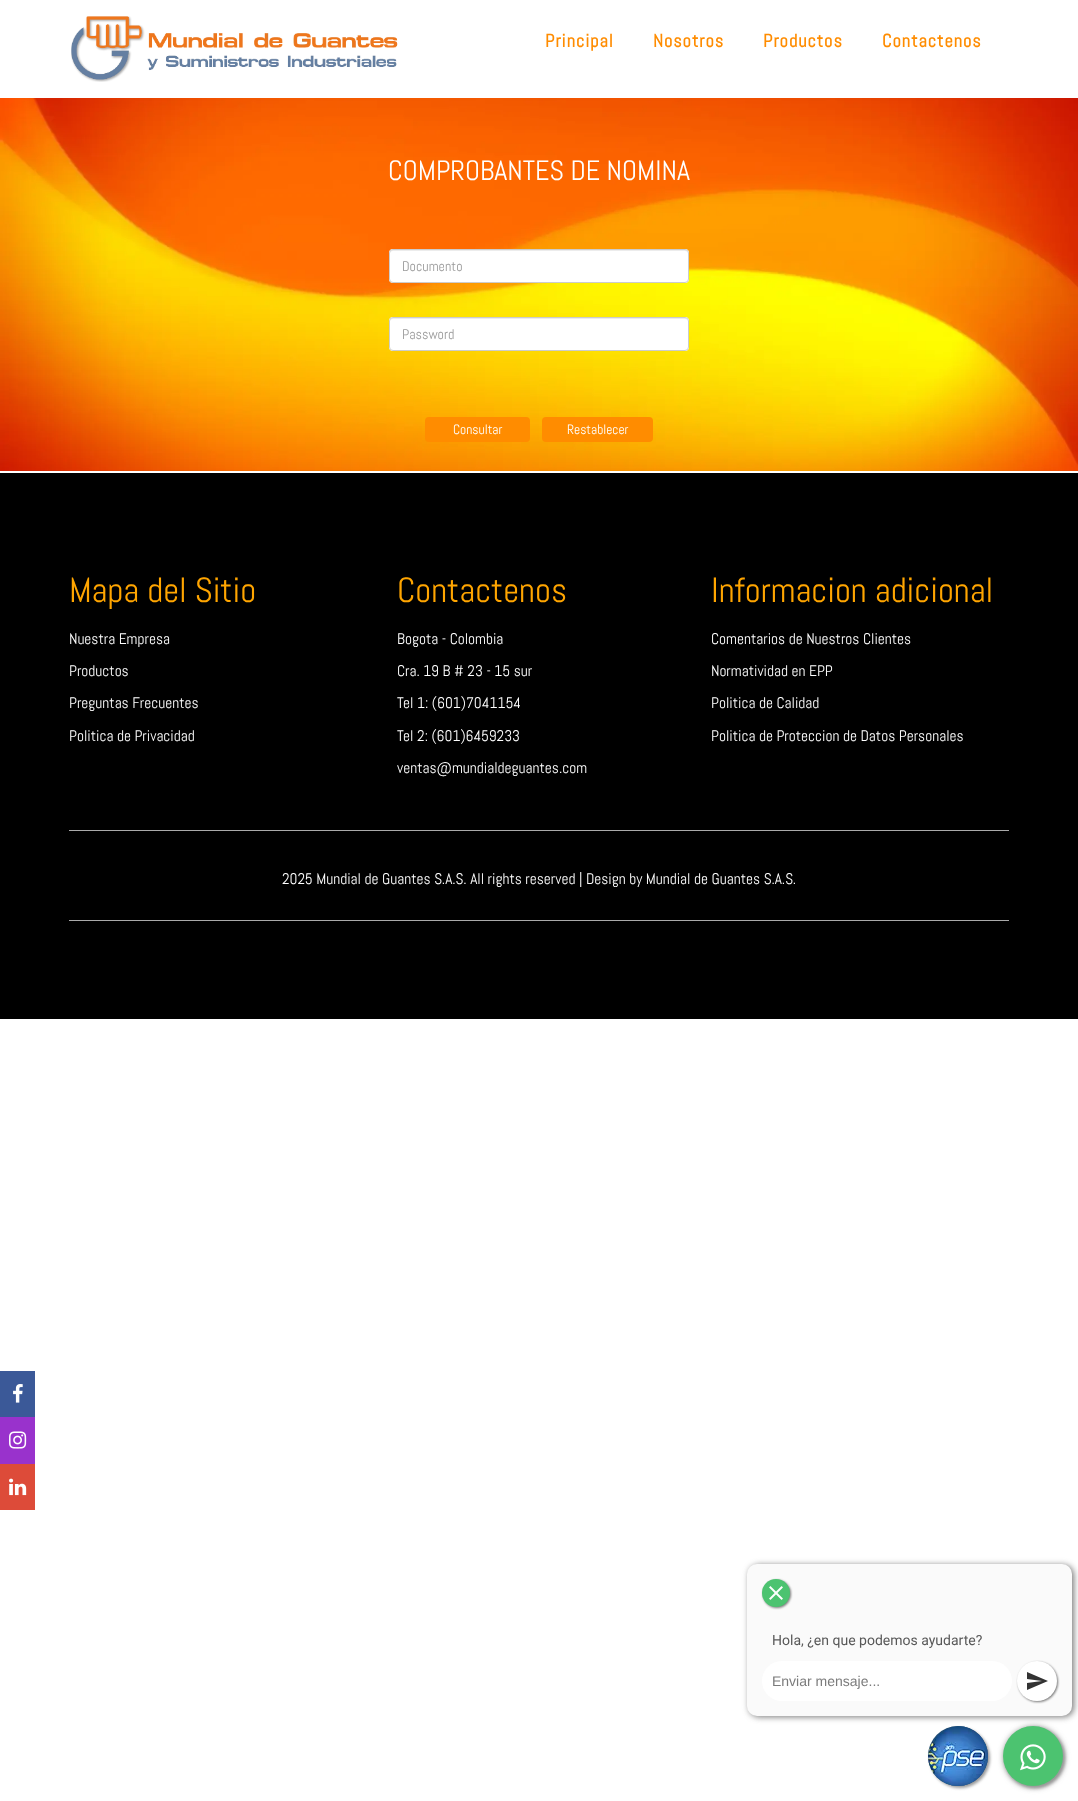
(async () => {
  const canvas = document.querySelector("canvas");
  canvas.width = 1078;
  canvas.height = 1801;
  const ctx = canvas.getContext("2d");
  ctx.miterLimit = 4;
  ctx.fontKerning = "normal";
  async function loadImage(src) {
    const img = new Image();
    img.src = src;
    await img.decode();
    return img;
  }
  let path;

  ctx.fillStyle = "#ffffff";
  ctx.fillRect(0, 0, 1078, 1801);
  ctx.drawImage(await loadImage("img/1.png"), 0, 98, 1078, 373);
  ctx.beginPath();
  ctx.roundRect(389, 249, 300, 34, 4);
  ctx.fill();
  ctx.fillStyle = "#ececec";
  path = new Path2D("M393 251H685C687 251 688 252 688 254L687 251L686 250H393C391 250 390 252 390 254C390 252 391 251 393 251Z");
  ctx.fill(path);
  ctx.beginPath();
  ctx.roundRect(389.5, 249.5, 299, 33, 3.5);
  ctx.strokeStyle = "#cccccc";
  ctx.stroke();
  ctx.fillStyle = "#ffffff";
  ctx.beginPath();
  ctx.roundRect(389, 317, 300, 34, 4);
  ctx.fill();
  ctx.fillStyle = "#ececec";
  path = new Path2D("M393 319H685C687 319 688 320 688 322L687 319L686 318H393C391 318 390 320 390 322C390 320 391 319 393 319Z");
  ctx.fill(path);
  ctx.beginPath();
  ctx.roundRect(389.5, 317.5, 299, 33, 3.5);
  ctx.stroke();
  ctx.fillStyle = "#ff8c00";
  ctx.beginPath();
  ctx.roundRect(425, 417, 105, 25, 4);
  ctx.fill();
  ctx.beginPath();
  ctx.roundRect(542, 417, 111, 25, 4);
  ctx.fill();
  ctx.drawImage(await loadImage("img/2.png"), 71, 16, 327, 66);
  ctx.fillStyle = "#3b5998";
  ctx.fillRect(0, 1371, 35, 46);
  ctx.drawImage(await loadImage("img/3.png"), 13, 1384, 10, 19);
  ctx.fillStyle = "#9932cc";
  ctx.fillRect(0, 1417, 35, 47);
  ctx.drawImage(await loadImage("img/4.png"), 9, 1431, 18, 18);
  ctx.fillStyle = "#dd4b39";
  ctx.fillRect(0, 1464, 35, 46);
  ctx.drawImage(await loadImage("img/5.png"), 9, 1478, 18, 18);
  ctx.fillStyle = "rgba(68, 68, 68, 0.71)";
  ctx.filter = "blur(3px)";
  ctx.beginPath();
  ctx.roundRect(749, 1565, 325, 152, 10);
  ctx.fill();
  ctx.filter = "none";
  ctx.fillStyle = "#fafafa";
  ctx.beginPath();
  ctx.roundRect(747, 1564, 325, 152, 10);
  ctx.fill();
  ctx.fillStyle = "rgba(68, 68, 68, 0.71)";
  ctx.filter = "blur(1px)";
  ctx.beginPath();
  ctx.roundRect(763, 1580, 28, 28, 14);
  ctx.fill();
  ctx.filter = "none";
  ctx.fillStyle = "#4cc370";
  ctx.beginPath();
  ctx.arc(776, 1593, 14, 0, Math.PI * 2);
  ctx.fill();
  ctx.drawImage(await loadImage("img/6.png"), 769, 1586, 14, 14);
  ctx.fillStyle = "#ffffff";
  ctx.beginPath();
  ctx.roundRect(762, 1661, 250, 40, 20);
  ctx.fill();
  ctx.fillStyle = "rgba(68, 68, 68, 0.71)";
  ctx.filter = "blur(1px)";
  ctx.beginPath();
  ctx.roundRect(1018, 1662, 40, 40, 20);
  ctx.fill();
  ctx.filter = "none";
  ctx.fillStyle = "#ffffff";
  ctx.beginPath();
  ctx.arc(1037, 1681, 20, 0, Math.PI * 2);
  ctx.fill();
  ctx.fillStyle = "#333333";
  path = new Path2D("M1027 1690V1683L1042 1681L1027 1679V1672L1048 1681Z");
  ctx.fill(path);
  ctx.fillStyle = "rgba(68, 68, 68, 0.71)";
  ctx.filter = "blur(3px)";
  ctx.beginPath();
  ctx.roundRect(1004, 1727, 60, 60, 30);
  ctx.fill();
  ctx.filter = "none";
  ctx.fillStyle = "#999999";
  ctx.filter = "blur(1.5px)";
  ctx.beginPath();
  ctx.roundRect(1005, 1728, 60, 60, 30);
  ctx.fill();
  ctx.filter = "none";
  ctx.fillStyle = "#4cc370";
  ctx.beginPath();
  ctx.arc(1033, 1756, 30, 0, Math.PI * 2);
  ctx.fill();
  ctx.drawImage(await loadImage("img/7.png"), 1020, 1744, 26, 27);
  ctx.fillStyle = "#999999";
  ctx.filter = "blur(1.5px)";
  ctx.beginPath();
  ctx.roundRect(930, 1728, 60, 60, 30);
  ctx.fill();
  ctx.filter = "none";
  ctx.fillStyle = "#204d74";
  ctx.beginPath();
  ctx.arc(958, 1756, 30, 0, Math.PI * 2);
  ctx.fill();
  ctx.drawImage(await loadImage("img/8.png"), 928, 1726, 60, 60);
  for (const [x, y, w, h, color] of [
    [0, 473, 1078, 546, "#000000"],
    [69, 830, 940, 1, "#aaaaaa"],
    [69, 920, 940, 1, "#aaaaaa"],
  ]) {
    ctx.fillStyle = color;
    ctx.fillRect(x, y, w, h);
  }
  ctx.font = "28px Abel";
  ctx.fillStyle = "#ffffff";
  ctx.fillText("COMPROBANTES DE NOMINA", 388, 180);
  ctx.font = "14px Abel";
  ctx.fillStyle = "#999999";
  ctx.fillText("Documento", 402, 271);
  ctx.fillText("Password", 402, 339);
  ctx.font = "13.5px Abel";
  ctx.fillStyle = "#ffffff";
  ctx.fillText("Consultar", 453, 434);
  ctx.fillText("Restablecer", 567, 434);
  ctx.letterSpacing = "1px";
  ctx.font = "bold 18.25px Abel";
  ctx.fillStyle = "#ff8c00";
  for (const [text, x, y] of [
    ["Principal", 545, 47],
    ["Nosotros", 653, 47],
    ["Productos", 763, 47],
    ["Contactenos", 882, 47],
  ]) {
    ctx.fillText(text, x, y);
  }
  ctx.letterSpacing = "0px";
  ctx.font = "14px Roboto";
  ctx.fillStyle = "#585858";
  ctx.fillText("Hola, ¿en que podemos ayudarte?", 772, 1645);
  ctx.font = "14px Liberation Sans";
  ctx.fillStyle = "#7b7b7b";
  ctx.fillText("Enviar mensaje...", 772, 1686);
  ctx.font = "35px Abel";
  ctx.fillStyle = "#ffa500";
  ctx.fillText("Mapa del Sitio", 69, 602);
  ctx.font = "15.4px Abel";
  ctx.fillStyle = "#ffffff";
  for (const [text, x, y] of [
    ["Nuestra Empresa", 69, 644],
    ["Productos", 69, 676],
    ["Preguntas Frecuentes", 69, 708],
    ["Politica de Privacidad", 69, 741],
  ]) {
    ctx.fillText(text, x, y);
  }
  ctx.font = "35px Abel";
  ctx.fillStyle = "#ffa500";
  ctx.fillText("Contactenos", 397, 602);
  ctx.font = "15.4px Abel";
  ctx.fillStyle = "#ffffff";
  for (const [text, x, y] of [
    ["Bogota - Colombia", 397, 644],
    ["Cra. 19 B # 23 - 15 sur", 397, 676],
    ["Tel 1: (601)7041154", 397, 708],
    ["Tel 2: (601)6459233", 397, 741],
    ["ventas@mundialdeguantes.com", 397, 773],
  ]) {
    ctx.fillText(text, x, y);
  }
  ctx.font = "35px Abel";
  ctx.fillStyle = "#ffa500";
  ctx.fillText("Informacion adicional", 711, 602);
  ctx.font = "15.4px Abel";
  ctx.fillStyle = "#ffffff";
  for (const [text, x, y] of [
    ["Comentarios de Nuestros Clientes", 711, 644],
    ["Normatividad en EPP", 711, 676],
    ["Politica de Calidad", 711, 708],
    ["Politica de Proteccion de Datos Personales", 711, 741],
    ["2025 Mundial de Guantes S.A.S. All rights reserved | Design by Mundial de Guantes S.A.S.", 282, 884],
  ]) {
    ctx.fillText(text, x, y);
  }
})();
